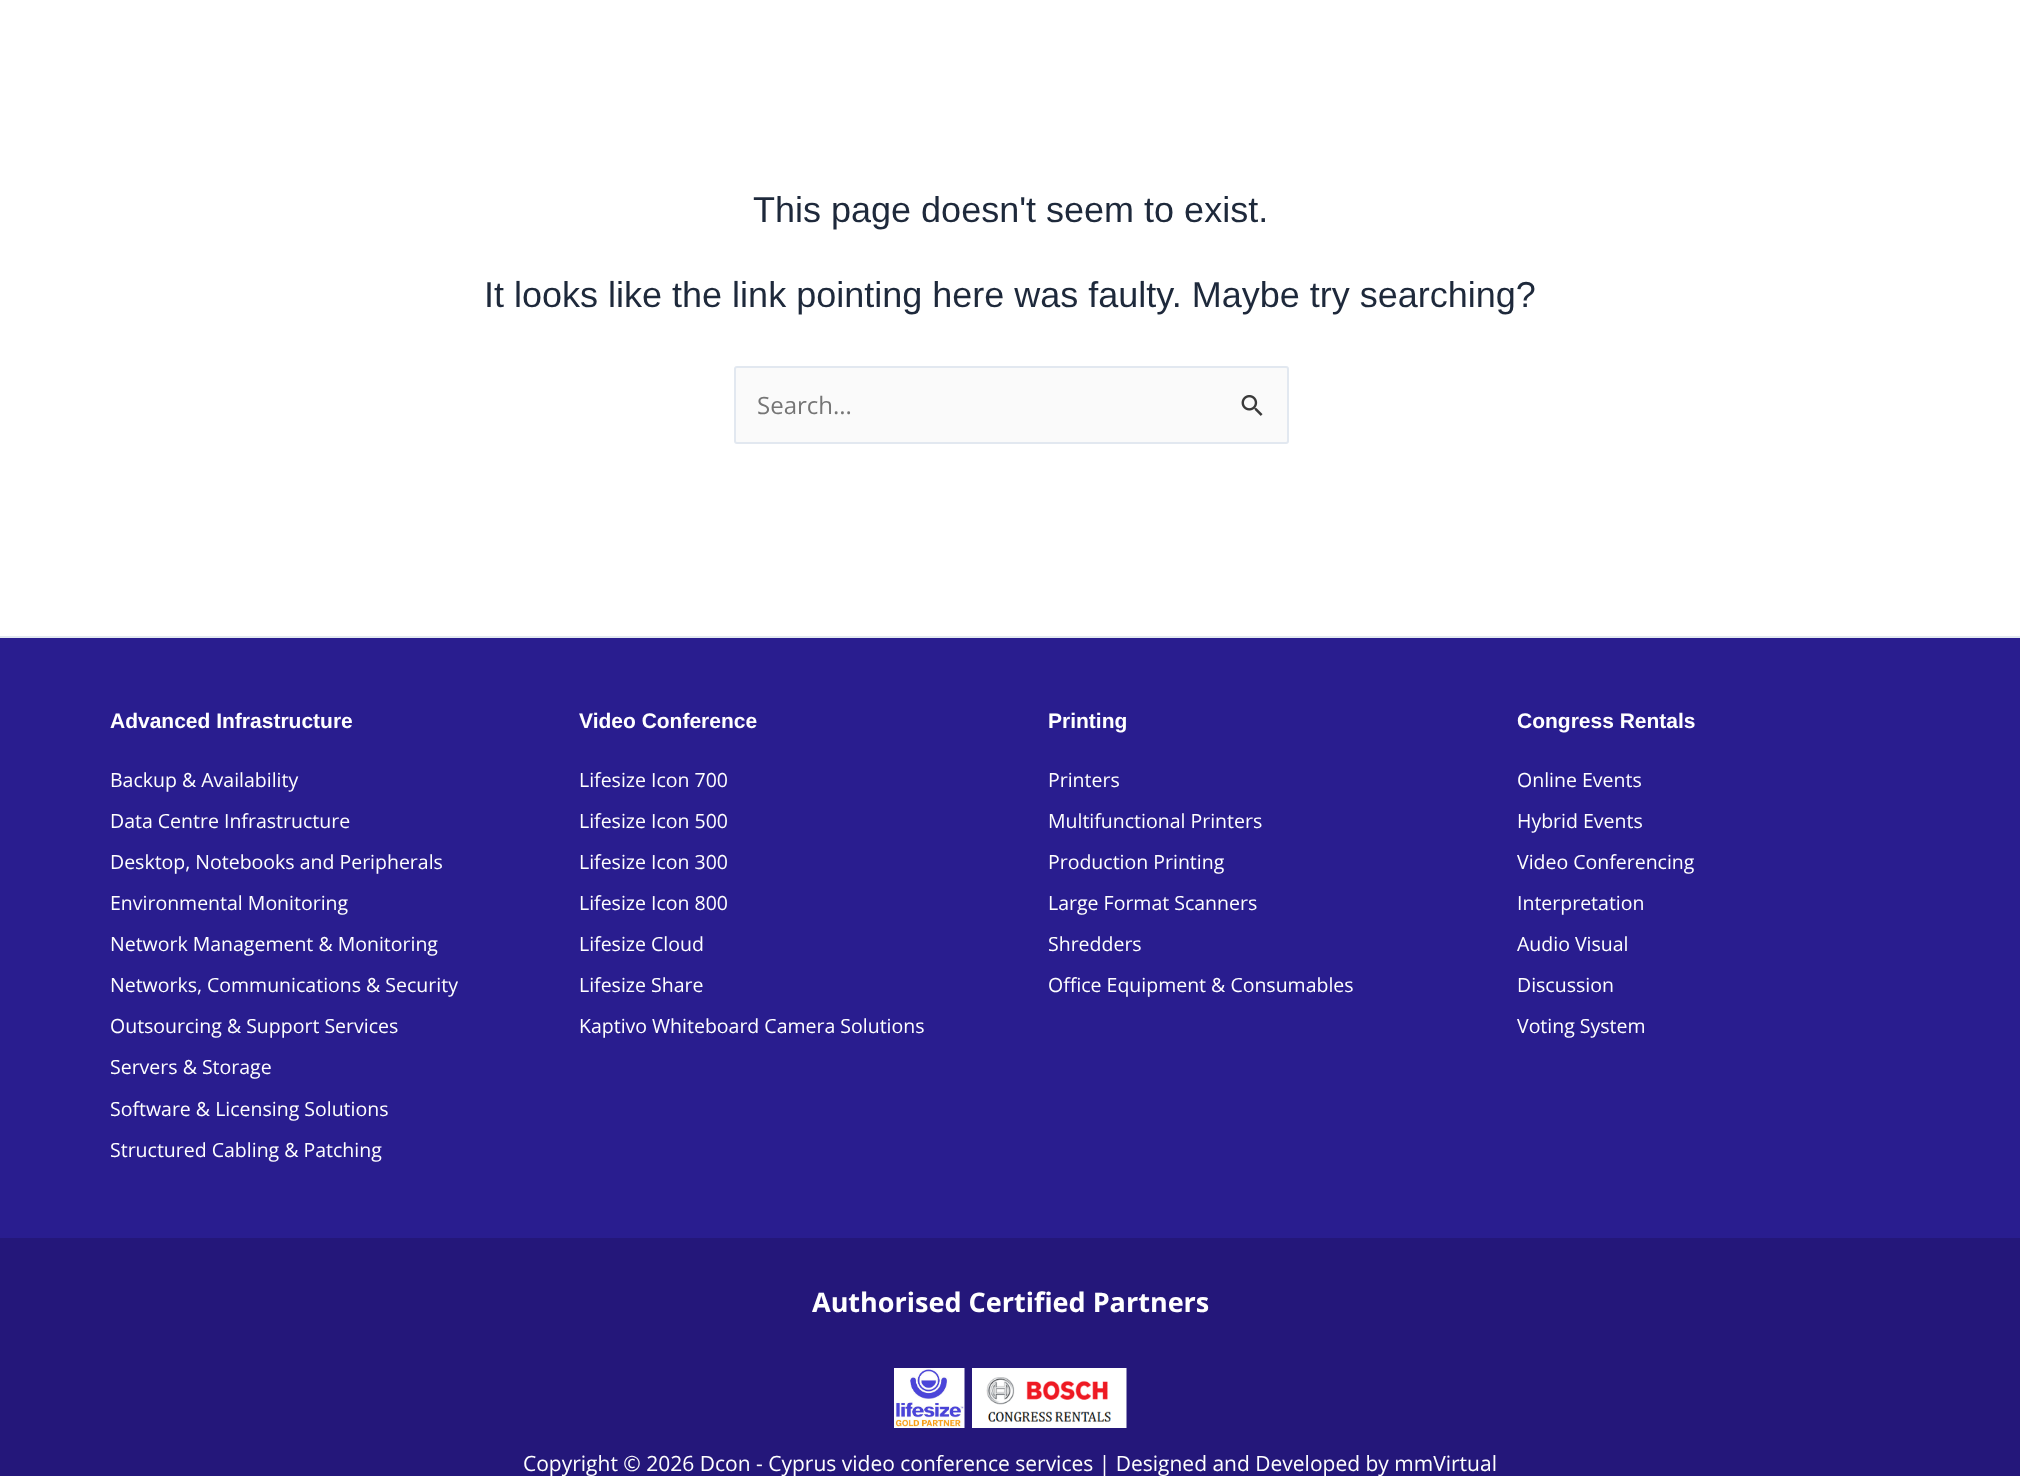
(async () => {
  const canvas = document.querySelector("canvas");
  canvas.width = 2020;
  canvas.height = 1476;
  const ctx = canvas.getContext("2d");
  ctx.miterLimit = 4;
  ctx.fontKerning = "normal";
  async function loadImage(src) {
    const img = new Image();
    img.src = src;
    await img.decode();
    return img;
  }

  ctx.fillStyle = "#ffffff";
  ctx.fillRect(0, 0, 2020, 1476);
  ctx.fillStyle = "#fafafa";
  ctx.beginPath();
  ctx.roundRect(735, 367, 553, 76, 2);
  ctx.fill();
  ctx.strokeStyle = "#e2e8f0";
  ctx.lineWidth = 2;
  ctx.stroke();
  ctx.drawImage(await loadImage("img/1.png"), 1241, 395, 22, 21);
  for (const [x, y, w, h, color] of [
    [0, 638, 2020, 600, "#291d8f"],
    [0, 636, 2020, 2, "#e2e8f0"],
    [0, 1238, 2020, 238, "#24177a"],
  ]) {
    ctx.fillStyle = color;
    ctx.fillRect(x, y, w, h);
  }
  ctx.drawImage(await loadImage("img/2.png"), 894, 1368, 71, 60);
  ctx.drawImage(await loadImage("img/3.png"), 972, 1368, 155, 60);
  ctx.font = "36px Liberation Sans";
  ctx.fillStyle = "#1e293b";
  ctx.fillText("This page doesn't seem to exist.", 753, 222);
  ctx.fillText("It looks like the link pointing here was faulty. Maybe try searching?", 484, 307);
  ctx.font = "24px Open Sans";
  ctx.fillStyle = "#757575";
  ctx.fillText("Search...", 757, 414);
  ctx.font = "bold 21px Liberation Sans";
  ctx.fillStyle = "#ffffff";
  ctx.fillText("Advanced Infrastructure", 110, 728);
  ctx.font = "19.5px Open Sans";
  for (const [text, x, y] of [
    ["Backup & Availability", 110, 787],
    ["Data Centre Infrastructure", 110, 828],
    ["Desktop, Notebooks and Peripherals", 110, 869],
    ["Environmental Monitoring", 110, 910],
    ["Network Management & Monitoring", 110, 951],
    ["Networks, Communications & Security", 110, 992],
    ["Outsourcing & Support Services", 110, 1033],
    ["Servers & Storage", 110, 1074],
    ["Software & Licensing Solutions", 110, 1116],
    ["Structured Cabling & Patching", 110, 1157],
  ]) {
    ctx.fillText(text, x, y);
  }
  ctx.font = "bold 21px Liberation Sans";
  ctx.fillText("Video Conference", 579, 728);
  ctx.font = "19.5px Open Sans";
  for (const [text, x, y] of [
    ["Lifesize Icon 700", 579, 787],
    ["Lifesize Icon 500", 579, 828],
    ["Lifesize Icon 300", 579, 869],
    ["Lifesize Icon 800", 579, 910],
    ["Lifesize Cloud", 579, 951],
    ["Lifesize Share", 579, 992],
    ["Kaptivo Whiteboard Camera Solutions", 579, 1033],
  ]) {
    ctx.fillText(text, x, y);
  }
  ctx.font = "bold 21px Liberation Sans";
  ctx.fillText("Printing", 1048, 728);
  ctx.font = "19.5px Open Sans";
  for (const [text, x, y] of [
    ["Printers", 1048, 787],
    ["Multifunctional Printers", 1048, 828],
    ["Production Printing", 1048, 869],
    ["Large Format Scanners", 1048, 910],
    ["Shredders", 1048, 951],
    ["Office Equipment & Consumables", 1048, 992],
  ]) {
    ctx.fillText(text, x, y);
  }
  ctx.font = "bold 21px Liberation Sans";
  ctx.fillText("Congress Rentals", 1517, 728);
  ctx.font = "19.5px Open Sans";
  for (const [text, x, y] of [
    ["Online Events", 1517, 787],
    ["Hybrid Events", 1517, 828],
    ["Video Conferencing", 1517, 869],
    ["Interpretation", 1517, 910],
    ["Audio Visual", 1517, 951],
    ["Discussion", 1517, 992],
    ["Voting System", 1517, 1033],
  ]) {
    ctx.fillText(text, x, y);
  }
  ctx.font = "bold 27px Open Sans";
  ctx.fillText("Authorised Certified Partners", 812, 1312);
  ctx.font = "21px Open Sans";
  ctx.fillText("Copyright © 2026 Dcon - Cyprus video conference services | Designed and Developed by mmVirtual", 523, 1471);
})();
